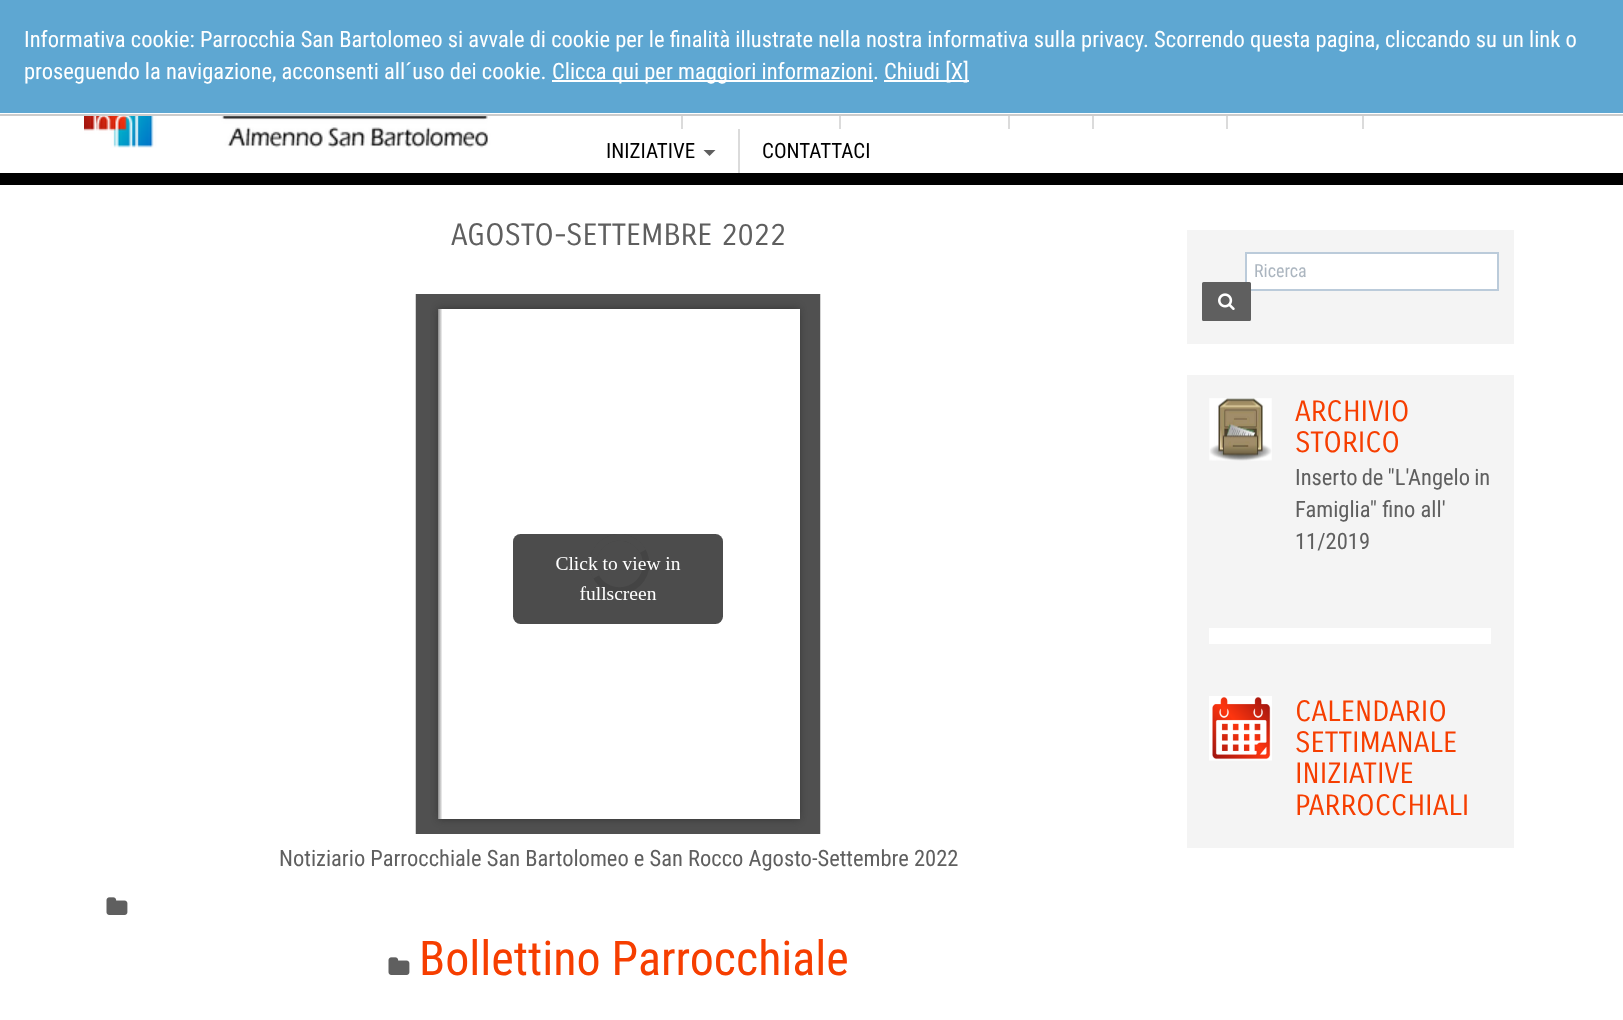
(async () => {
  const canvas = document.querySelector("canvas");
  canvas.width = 1623;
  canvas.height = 1020;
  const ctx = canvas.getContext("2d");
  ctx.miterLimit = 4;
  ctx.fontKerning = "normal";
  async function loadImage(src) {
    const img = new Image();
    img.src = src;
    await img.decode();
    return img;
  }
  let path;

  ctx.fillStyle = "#ffffff";
  ctx.fillRect(0, 0, 1623, 1020);
  for (const [x, y, w, h, color] of [
    [0, 114, 1623, 2, "#cccccc"],
    [0, 0, 1623, 113, "#5ea7d2"],
    [552, 80, 321, 2, "#ffffff"],
    [884, 80, 85, 2, "#ffffff"],
  ]) {
    ctx.fillStyle = color;
    ctx.fillRect(x, y, w, h);
  }
  ctx.drawImage(await loadImage("img/1.png"), 84, 116, 458, 32);
  for (const [x, y, w, h, color] of [
    [681, 116, 2, 13, "#dbdbdb"],
    [839, 116, 2, 13, "#dbdbdb"],
    [1008, 116, 2, 13, "#dbdbdb"],
    [1092, 116, 2, 13, "#dbdbdb"],
    [1226, 116, 2, 13, "#dbdbdb"],
    [1362, 116, 2, 13, "#dbdbdb"],
    [738, 129, 2, 44, "#dbdbdb"],
  ]) {
    ctx.fillStyle = color;
    ctx.fillRect(x, y, w, h);
  }
  ctx.fillStyle = "#5f5f5f";
  path = new Path2D("M703.5 150H715.5L709.5 156Z");
  ctx.fill(path);
  ctx.fillStyle = "#000000";
  ctx.fillRect(0, 173, 1623, 12);
  ctx.drawImage(await loadImage("img/2.png"), 415, 294, 406, 540);
  ctx.drawImage(await loadImage("img/3.png"), 106, 897, 22, 18);
  ctx.drawImage(await loadImage("img/3.png"), 388, 957, 22, 18);
  ctx.fillStyle = "#f4f4f4";
  ctx.fillRect(1187, 230, 327, 114);
  ctx.fillStyle = "#ffffff";
  ctx.beginPath();
  ctx.rect(1246, 253, 252, 37);
  ctx.fill();
  ctx.strokeStyle = "#bbcbda";
  ctx.lineWidth = 2;
  ctx.stroke();
  ctx.fillStyle = "#5f5f5f";
  ctx.beginPath();
  ctx.roundRect(1203, 283, 47, 37, 0.5);
  ctx.fill();
  ctx.strokeStyle = "#5f5f5f";
  ctx.stroke();
  ctx.drawImage(await loadImage("img/4.png"), 1218, 293, 17, 17);
  ctx.fillStyle = "#f4f4f4";
  ctx.fillRect(1187, 375, 327, 473);
  ctx.drawImage(await loadImage("img/5.png"), 1209, 398, 63, 63);
  ctx.fillStyle = "#ffffff";
  ctx.fillRect(1209, 628, 282, 16);
  ctx.drawImage(await loadImage("img/6.png"), 1209, 696, 63, 65);
  ctx.font = "22.5px Roboto Condensed";
  for (const [text, x, y] of [
    ["Informativa cookie: Parrocchia San Bartolomeo si avvale di cookie per le finalità illustrate nella nostra informativa sulla privacy. Scorrendo questa pagina, cliccando su un link o", 24, 47],
    ["proseguendo la navigazione, acconsenti all´uso dei cookie.", 24, 79],
    ["Clicca qui per maggiori informazioni.", 552, 79],
    ["Chiudi [X]", 884, 79],
  ]) {
    ctx.fillText(text, x, y);
  }
  ctx.font = "21px Roboto Condensed";
  ctx.fillStyle = "#000000";
  ctx.fillText("INIZIATIVE", 606, 158);
  ctx.fillText("CONTATTACI", 762, 158);
  ctx.font = "30px Carrois Gothic SC";
  ctx.fillStyle = "#5f5f5f";
  ctx.fillText("AGOSTO-SETTEMBRE 2022", 451, 245);
  ctx.font = "22.5px Roboto Condensed";
  ctx.fillText("Notiziario Parrocchiale San Bartolomeo e San Rocco Agosto-Settembre 2022", 279, 866);
  ctx.font = "48px Roboto Condensed";
  ctx.fillStyle = "#f63e00";
  ctx.fillText("Bollettino Parrocchiale", 419, 975);
  ctx.font = "18px Roboto Condensed";
  ctx.fillStyle = "#acb6c0";
  ctx.fillText("Ricerca", 1254, 277);
  ctx.font = "28.5px Carrois Gothic SC";
  ctx.fillStyle = "#f63e00";
  ctx.fillText("ARCHIVIO", 1295, 421);
  ctx.fillText("STORICO", 1295, 452);
  ctx.wordSpacing = "-1px";
  ctx.font = "22.5px Roboto Condensed";
  ctx.fillStyle = "#5f5f5f";
  ctx.fillText("Inserto de \"L'Angelo in", 1295, 485);
  ctx.wordSpacing = "0px";
  ctx.fillText("Famiglia\" fino all'", 1295, 517);
  ctx.fillText("11/2019", 1295, 549);
  ctx.font = "28.5px Carrois Gothic SC";
  ctx.fillStyle = "#f63e00";
  for (const [text, x, y] of [
    ["CALENDARIO", 1295, 721],
    ["SETTIMANALE", 1295, 752],
    ["INIZIATIVE", 1295, 783],
    ["PARROCCHIALI", 1295, 815],
  ]) {
    ctx.fillText(text, x, y);
  }
})();
